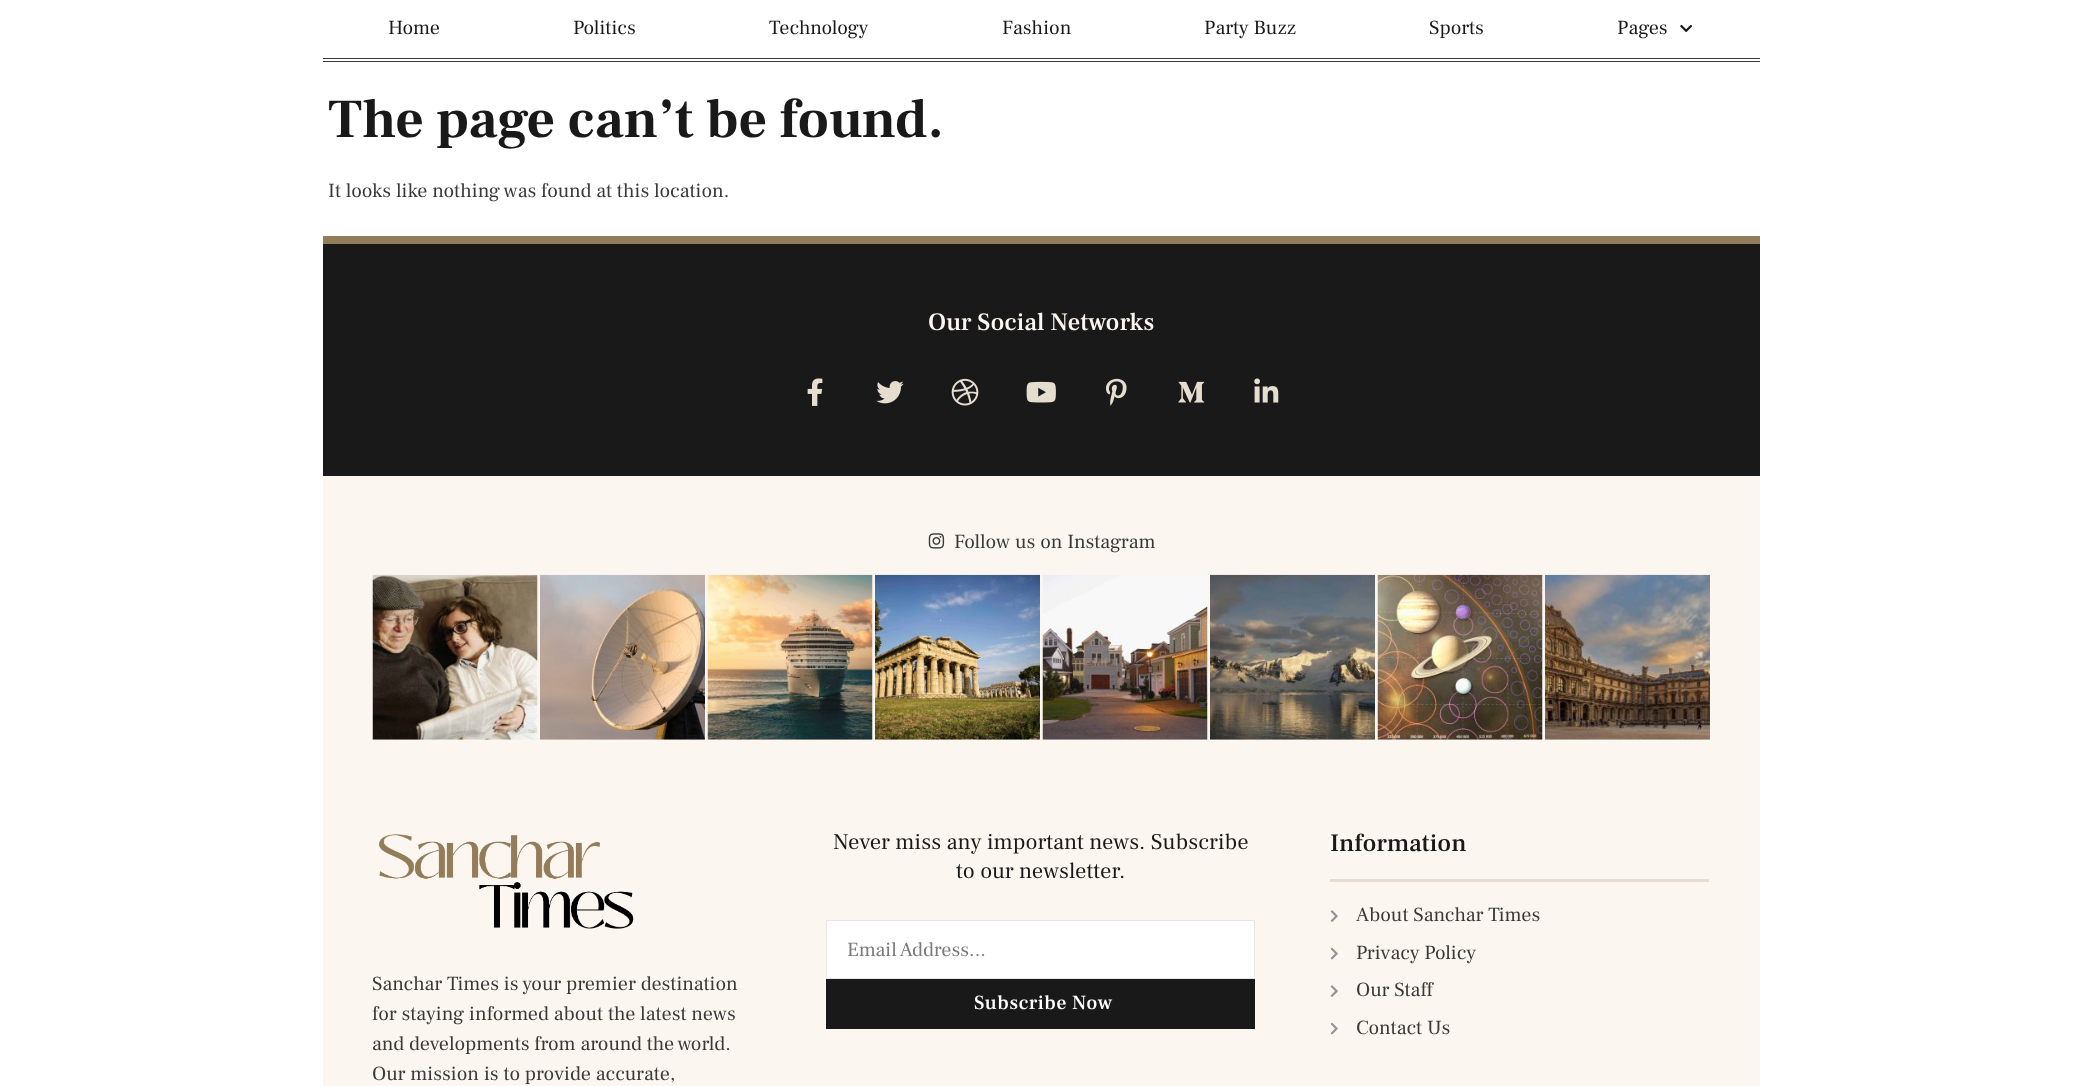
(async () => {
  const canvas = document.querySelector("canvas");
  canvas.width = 2081;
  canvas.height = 1086;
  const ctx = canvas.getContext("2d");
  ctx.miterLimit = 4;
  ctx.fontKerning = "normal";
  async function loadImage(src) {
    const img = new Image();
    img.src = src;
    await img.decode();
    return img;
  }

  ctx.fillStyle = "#ffffff";
  ctx.fillRect(0, 0, 2081, 1086);
  ctx.fillStyle = "#393939";
  ctx.fillRect(323, 58, 1437, 1);
  ctx.fillRect(323, 61, 1437, 1);
  ctx.drawImage(await loadImage("img/1.png"), 1680, 24, 12, 9);
  ctx.fillStyle = "#191919";
  ctx.fillRect(323, 244, 1437, 232);
  ctx.fillStyle = "#927c59";
  ctx.fillRect(323, 236, 1437, 8);
  ctx.drawImage(await loadImage("img/2.png"), 807, 378, 16, 28);
  ctx.drawImage(await loadImage("img/3.png"), 876, 381, 28, 23);
  ctx.drawImage(await loadImage("img/4.png"), 951, 378, 28, 28);
  ctx.drawImage(await loadImage("img/5.png"), 1026, 381, 30, 22);
  ctx.drawImage(await loadImage("img/6.png"), 1105, 378, 22, 28);
  ctx.drawImage(await loadImage("img/7.png"), 1178, 381, 27, 22);
  ctx.drawImage(await loadImage("img/8.png"), 1254, 378, 25, 25);
  ctx.fillStyle = "#fbf6ef";
  ctx.fillRect(323, 476, 1437, 610);
  ctx.drawImage(await loadImage("img/9.png"), 928, 533, 17, 16);
  ctx.drawImage(await loadImage("img/10.png"), 372, 574, 166, 166);
  ctx.drawImage(await loadImage("img/11.png"), 540, 574, 165, 166);
  ctx.drawImage(await loadImage("img/12.png"), 707, 574, 166, 166);
  ctx.drawImage(await loadImage("img/13.png"), 875, 574, 165, 166);
  ctx.drawImage(await loadImage("img/14.png"), 1042, 575, 166, 165);
  ctx.drawImage(await loadImage("img/15.png"), 1210, 574, 165, 166);
  ctx.drawImage(await loadImage("img/16.png"), 1377, 574, 166, 166);
  ctx.drawImage(await loadImage("img/17.png"), 1545, 574, 165, 166);
  ctx.drawImage(await loadImage("img/18.png"), 378, 834, 256, 95);
  ctx.fillStyle = "#ffffff";
  ctx.beginPath();
  ctx.rect(826.5, 920.5, 428, 58);
  ctx.fill();
  ctx.strokeStyle = "#e6e6e6";
  ctx.stroke();
  ctx.fillStyle = "#191919";
  ctx.fillRect(826, 979, 429, 50);
  ctx.fillStyle = "#e4ddd0";
  ctx.fillRect(1330, 879, 379, 3);
  ctx.drawImage(await loadImage("img/19.png"), 1330, 910, 8, 12);
  ctx.drawImage(await loadImage("img/20.png"), 1330, 947, 8, 13);
  ctx.drawImage(await loadImage("img/19.png"), 1330, 985, 8, 12);
  ctx.drawImage(await loadImage("img/20.png"), 1330, 1022, 8, 13);
  ctx.font = "20px Frank Ruhl Libre";
  ctx.fillStyle = "#191919";
  for (const [text, x, y] of [
    ["Home", 388, 34],
    ["Politics", 573, 34],
    ["Technology", 769, 34],
    ["Fashion", 1002, 34],
    ["Party Buzz", 1204, 34],
    ["Sports", 1429, 34],
    ["Pages", 1617, 34],
  ]) {
    ctx.fillText(text, x, y);
  }
  ctx.font = "bold 55px Frank Ruhl Libre";
  ctx.fillText("The page can’t be found.", 328, 137);
  ctx.font = "20px Frank Ruhl Libre";
  ctx.fillStyle = "#393939";
  ctx.fillText("It looks like nothing was found at this location.", 328, 197);
  ctx.font = "500 25px Frank Ruhl Libre";
  ctx.fillStyle = "#fbf6ef";
  ctx.fillText("Our Social Networks", 928, 330);
  ctx.font = "20px Frank Ruhl Libre";
  ctx.fillStyle = "#393939";
  for (const [text, x, y] of [
    ["Follow us on Instagram", 954, 548],
    ["Sanchar Times is your premier destination", 372, 990],
    ["for staying informed about the latest news", 372, 1020],
    ["and developments from around the world.", 372, 1050],
    ["Our mission is to provide accurate,", 372, 1080],
  ]) {
    ctx.fillText(text, x, y);
  }
  ctx.font = "22.5px Frank Ruhl Libre";
  ctx.fillStyle = "#191919";
  ctx.fillText("Never miss any important news. Subscribe", 833, 849);
  ctx.fillText("to our newsletter.", 956, 878);
  ctx.font = "20px Frank Ruhl Libre";
  ctx.fillStyle = "#797a7c";
  ctx.fillText("Email Address...", 847, 956);
  ctx.letterSpacing = "0.4px";
  ctx.font = "500 20px Frank Ruhl Libre";
  ctx.fillStyle = "#ffffff";
  ctx.fillText("Subscribe Now", 974, 1009);
  ctx.letterSpacing = "0px";
  ctx.font = "500 25px Frank Ruhl Libre";
  ctx.fillStyle = "#191919";
  ctx.fillText("Information", 1330, 851);
  ctx.font = "20px Frank Ruhl Libre";
  ctx.fillStyle = "#393939";
  for (const [text, x, y] of [
    ["About Sanchar Times", 1356, 921],
    ["Privacy Policy", 1356, 959],
    ["Our Staff", 1356, 996],
    ["Contact Us", 1356, 1034],
  ]) {
    ctx.fillText(text, x, y);
  }
})();
